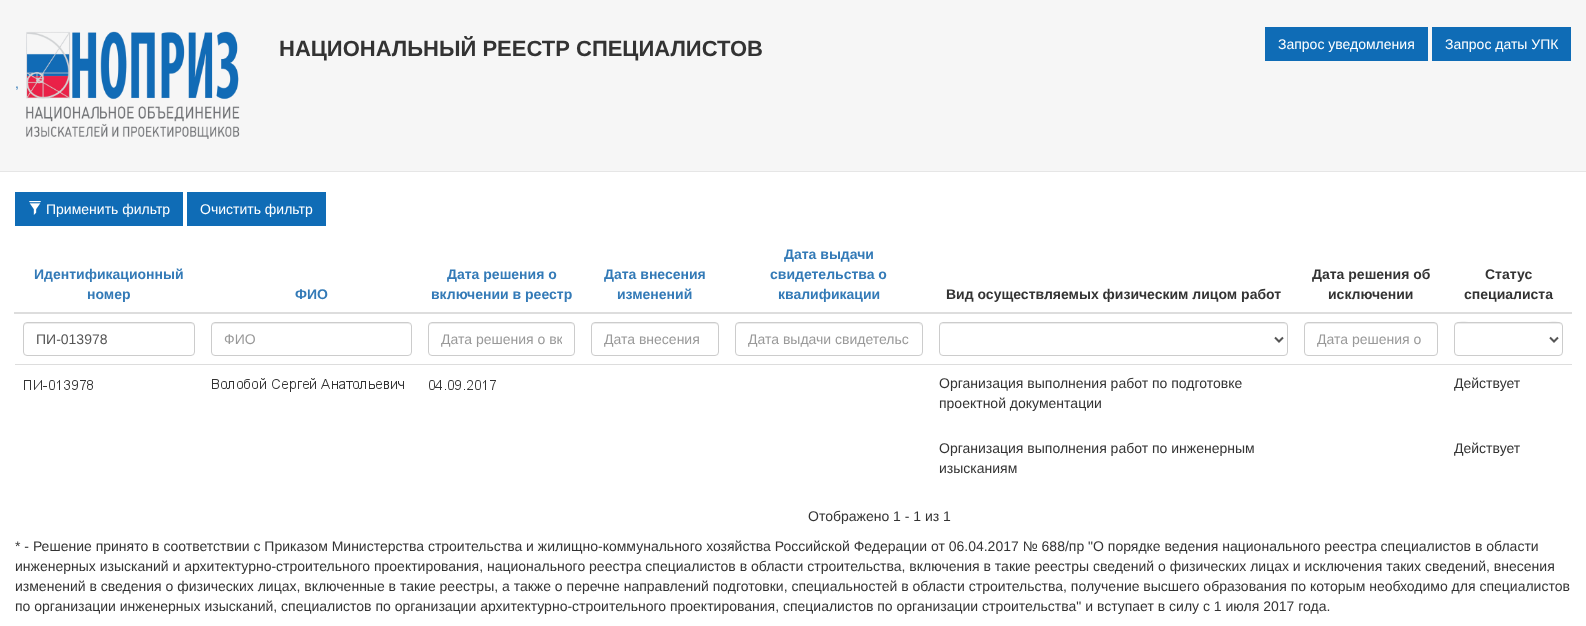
(async () => {
  const canvas = document.querySelector("canvas");
  canvas.width = 1586;
  canvas.height = 626;
  const ctx = canvas.getContext("2d");
  ctx.miterLimit = 4;
  ctx.fontKerning = "normal";
  async function loadImage(src) {
    const img = new Image();
    img.src = src;
    await img.decode();
    return img;
  }
  let path;

  ctx.fillStyle = "#ffffff";
  ctx.fillRect(0, 0, 1586, 626);
  for (const [x, y, w, h, color] of [
    [0, 0, 1586, 171, "#f6f6f6"],
    [0, 171, 1586, 1, "#e6e6e6"],
    [1265, 27, 163, 34, "#0f6cb6"],
    [1432, 27, 139, 34, "#0f6cb6"],
  ]) {
    ctx.fillStyle = color;
    ctx.fillRect(x, y, w, h);
  }
  ctx.drawImage(await loadImage("img/1.png"), 26, 31, 214, 108);
  ctx.fillRect(15, 192, 168, 34);
  ctx.drawImage(await loadImage("img/2.png"), 29, 201, 12, 14);
  ctx.fillRect(187, 192, 139, 34);
  ctx.fillStyle = "#dddddd";
  ctx.fillRect(14, 312, 1558, 2);
  ctx.fillStyle = "#ececec";
  path = new Path2D("M27 324H191C193 324 194 325 194 327V326C194 324 193 323 191 323H27C25 323 24 324 24 326V327C24 325 25 324 27 324Z");
  ctx.fill(path);
  ctx.beginPath();
  ctx.roundRect(23.5, 322.5, 171, 33, 3.5);
  ctx.strokeStyle = "#cccccc";
  ctx.stroke();
  path = new Path2D("M215 324H408C410 324 411 325 411 327C411 325 410 323 408 323H215C213 323 212 325 212 327C212 325 213 324 215 324Z");
  ctx.fill(path);
  ctx.beginPath();
  ctx.roundRect(211.5, 322.5, 200, 33, 3.5);
  ctx.stroke();
  path = new Path2D("M432 324H571C573 324 574 325 574 327V326C574 324 573 323 571 323H432C430 323 429 324 429 326V327C429 325 430 324 432 324Z");
  ctx.fill(path);
  ctx.beginPath();
  ctx.roundRect(428.5, 322.5, 146, 33, 3.5);
  ctx.stroke();
  path = new Path2D("M595 324H715C717 324 718 325 718 327C718 325 718 323 716 323H595C593 323 592 325 592 327C592 325 593 324 595 324Z");
  ctx.fill(path);
  ctx.beginPath();
  ctx.roundRect(591.5, 322.5, 127, 33, 3.5);
  ctx.stroke();
  path = new Path2D("M739 324H919L921 325L922 327C922 325 921 323 919 323H738C736 324 736 325 736 327C736 325 737 324 739 324Z");
  ctx.fill(path);
  ctx.beginPath();
  ctx.roundRect(735.5, 322.5, 187, 33, 3.5);
  ctx.stroke();
  path = new Path2D("M943 324H1284C1286 324 1287 325 1287 327C1287 325 1286 323 1284 323H943L941 324L940 327C940 325 941 324 943 324Z");
  ctx.fill(path);
  ctx.beginPath();
  ctx.roundRect(939.5, 322.5, 348, 33, 3.5);
  ctx.stroke();
  path = new Path2D("M1275 337.5L1279 341.5L1283 337.5");
  ctx.strokeStyle = "#555555";
  ctx.lineWidth = 2;
  ctx.stroke(path);
  path = new Path2D("M1308 324H1434C1436 324 1437 325 1437 327C1437 325 1437 323 1435 323H1307C1305 323 1305 325 1305 327C1305 325 1306 324 1308 324Z");
  ctx.fill(path);
  ctx.beginPath();
  ctx.roundRect(1304.5, 322.5, 133, 33, 3.5);
  ctx.strokeStyle = "#cccccc";
  ctx.lineWidth = 1;
  ctx.stroke();
  path = new Path2D("M1458 324H1559C1561 324 1562 325 1562 327C1562 318 1545 323 1542 323H1475C1472 323 1455 318 1455 327C1455 325 1456 324 1458 324Z");
  ctx.fill(path);
  ctx.beginPath();
  ctx.roundRect(1454.5, 322.5, 108, 33, 3.5);
  ctx.stroke();
  path = new Path2D("M1550 337.5L1554 341.5L1558 337.5");
  ctx.strokeStyle = "#555555";
  ctx.lineWidth = 2;
  ctx.stroke(path);
  ctx.drawImage(await loadImage("img/3.png"), 24, 380, 69, 10);
  ctx.drawImage(await loadImage("img/4.png"), 212, 378, 192, 14);
  ctx.drawImage(await loadImage("img/5.png"), 429, 380, 67, 10);
  ctx.fillStyle = "#dddddd";
  ctx.fillRect(15, 364, 1557, 1);
  ctx.font = "bold 22px Liberation Sans";
  ctx.fillStyle = "#333333";
  ctx.fillText("НАЦИОНАЛЬНЫЙ РЕЕСТР СПЕЦИАЛИСТОВ", 279, 56);
  ctx.font = "14px Liberation Sans";
  ctx.fillStyle = "#ffffff";
  ctx.fillText("Запрос уведомления", 1278, 49);
  ctx.fillText("Запрос даты УПК", 1445, 49);
  ctx.fillStyle = "#337ab7";
  ctx.fillText(",", 15, 88);
  ctx.fillStyle = "#ffffff";
  ctx.fillText("Применить фильтр", 46, 214);
  ctx.fillText("Очистить фильтр", 200, 214);
  ctx.font = "bold 14px Liberation Sans";
  ctx.fillStyle = "#337ab7";
  for (const [text, x, y] of [
    ["Идентификационный", 34, 279],
    ["номер", 87, 299],
    ["ФИО", 295, 299],
    ["Дата решения о", 447, 279],
    ["включении в реестр", 431, 299],
    ["Дата внесения", 604, 279],
    ["изменений", 617, 299],
    ["Дата выдачи", 784, 259],
    ["свидетельства о", 770, 279],
    ["квалификации", 778, 299],
  ]) {
    ctx.fillText(text, x, y);
  }
  ctx.fillStyle = "#333333";
  for (const [text, x, y] of [
    ["Вид осуществляемых физическим лицом работ", 946, 299],
    ["Дата решения об", 1312, 279],
    ["исключении", 1328, 299],
    ["Статус", 1485, 279],
    ["специалиста", 1464, 299],
  ]) {
    ctx.fillText(text, x, y);
  }
  ctx.font = "14px Liberation Sans";
  ctx.fillStyle = "#555555";
  ctx.fillText("ПИ-013978", 36, 344);
  ctx.fillStyle = "#999999";
  ctx.fillText("ФИО", 224, 344);
  ctx.save();
  ctx.beginPath();
  ctx.rect(441, 331, 121, 16);
  ctx.clip();
  ctx.fillText("Дата решения о вк", 441, 344);
  ctx.restore();
  ctx.fillText("Дата внесения", 604, 344);
  ctx.save();
  ctx.beginPath();
  ctx.rect(748, 331, 162, 16);
  ctx.clip();
  ctx.fillText("Дата выдачи свидетельс", 748, 344);
  ctx.restore();
  ctx.fillText("Дата решения о", 1317, 344);
  ctx.fillStyle = "#333333";
  for (const [text, x, y] of [
    ["Организация выполнения работ по подготовке", 939, 388],
    ["проектной документации", 939, 408],
    ["Организация выполнения работ по инженерным", 939, 453],
    ["изысканиям", 939, 473],
    ["Действует", 1454, 388],
    ["Действует", 1454, 453],
    ["Отображено 1 - 1 из 1", 808, 521],
    ["* - Решение принято в соответствии с Приказом Министерства строительства и жилищно-коммунального хозяйства Российской Федерации от 06.04.2017 № 688/пр \"О порядке ведения национального реестра специалистов в области", 15, 551],
    ["инженерных изысканий и архитектурно-строительного проектирования, национального реестра специалистов в области строительства, включения в такие реестры сведений о физических лицах и исключения таких сведений, внесения", 15, 571],
    ["изменений в сведения о физических лицах, включенные в такие реестры, а также о перечне направлений подготовки, специальностей в области строительства, получение высшего образования по которым необходимо для специалистов", 15, 591],
    ["по организации инженерных изысканий, специалистов по организации архитектурно-строительного проектирования, специалистов по организации строительства\" и вступает в силу с 1 июля 2017 года.", 15, 611],
  ]) {
    ctx.fillText(text, x, y);
  }
})();
